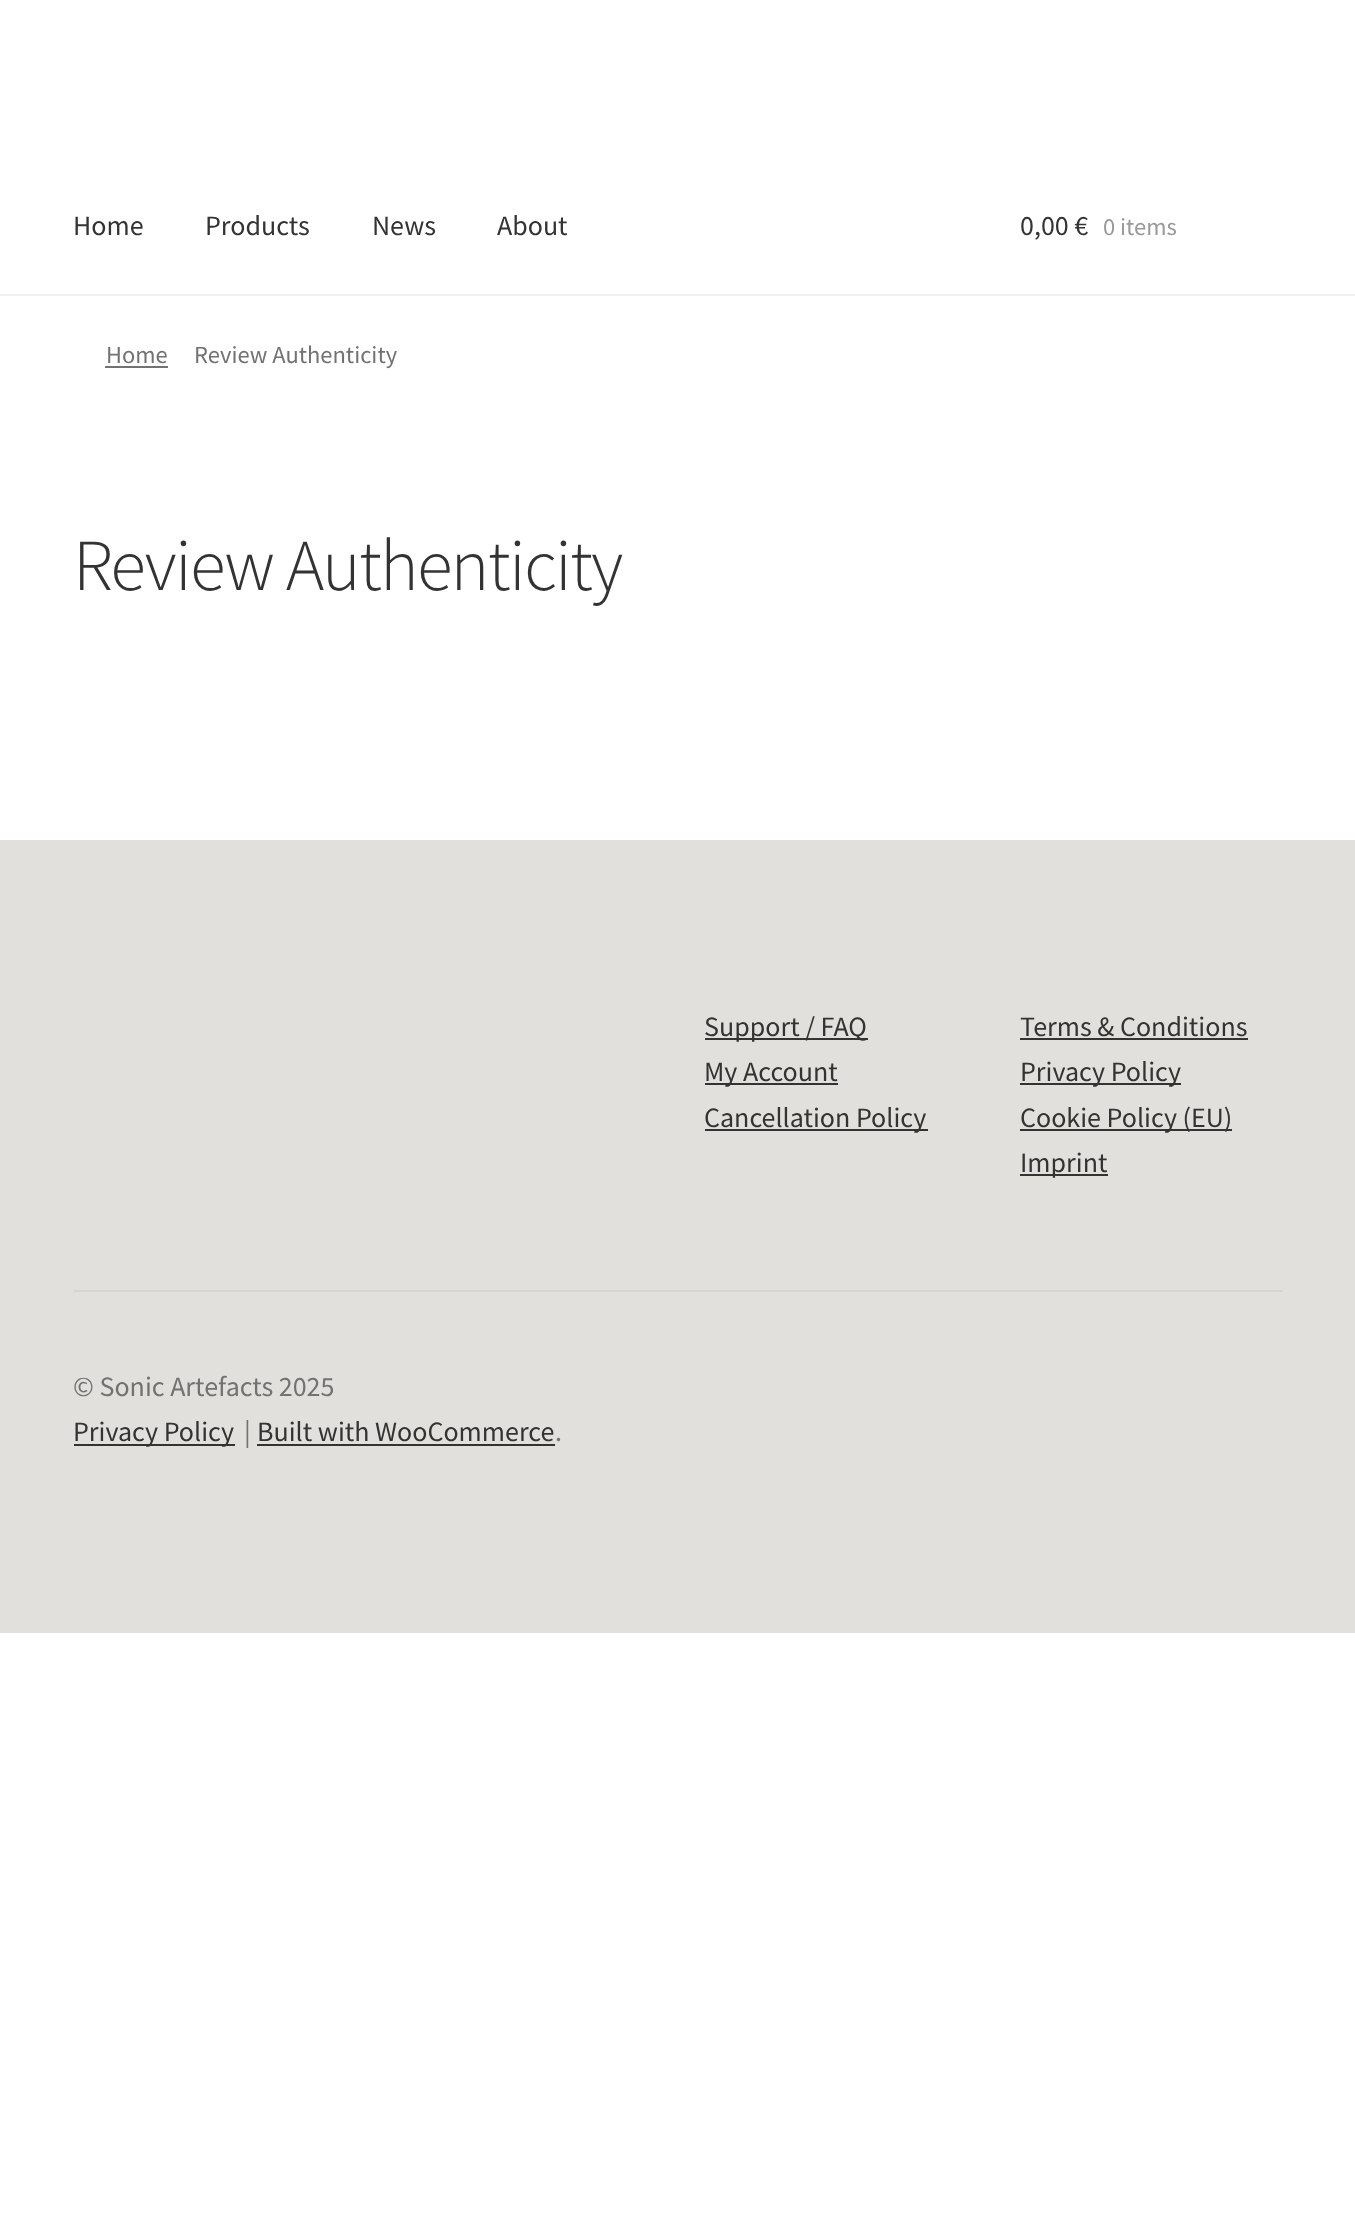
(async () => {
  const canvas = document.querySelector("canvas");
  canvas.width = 1355;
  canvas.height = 2230;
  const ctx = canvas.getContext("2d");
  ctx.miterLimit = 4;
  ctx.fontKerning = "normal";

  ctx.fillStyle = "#ffffff";
  ctx.fillRect(0, 0, 1355, 2230);
  for (const [x, y, w, h, color] of [
    [0, 294, 1355, 2, "#f0f0f0"],
    [105, 366, 63, 2, "#727272"],
    [0, 840, 1355, 793, "#e2e0dc"],
    [74, 1290, 1209, 2, "#d7d5d1"],
    [705, 1038, 163, 2, "#333333"],
    [705, 1083, 133, 2, "#333333"],
    [705, 1129, 223, 2, "#333333"],
    [1020, 1038, 228, 2, "#333333"],
    [1020, 1083, 161, 2, "#333333"],
    [1020, 1129, 212, 2, "#333333"],
    [1020, 1174, 88, 2, "#333333"],
    [74, 1444, 161, 2, "#333333"],
    [257, 1444, 298, 2, "#333333"],
  ]) {
    ctx.fillStyle = color;
    ctx.fillRect(x, y, w, h);
  }
  ctx.font = "28px Source Sans Pro";
  for (const [text, x, y] of [
    ["Home", 73, 235],
    ["Products", 205, 235],
    ["News", 372, 235],
    ["About", 497, 235],
    ["0,00 €", 1020, 235],
  ]) {
    ctx.fillText(text, x, y);
  }
  ctx.font = "24.5px Source Sans Pro";
  ctx.fillStyle = "#999999";
  ctx.fillText("0 items", 1103, 235);
  ctx.fillStyle = "#727272";
  ctx.fillText("Home", 106, 363);
  ctx.fillText("Review Authenticity", 194, 363);
  ctx.letterSpacing = "-1.75px";
  ctx.font = "300 73.25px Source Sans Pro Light";
  ctx.fillStyle = "#333333";
  ctx.fillText("Review Authenticity", 73, 590);
  ctx.letterSpacing = "0px";
  ctx.font = "28px Source Sans Pro";
  for (const [text, x, y] of [
    ["Support / FAQ", 704, 1036],
    ["My Account", 704, 1081],
    ["Cancellation Policy", 704, 1127],
    ["Terms & Conditions", 1020, 1036],
    ["Privacy Policy", 1020, 1081],
    ["Cookie Policy (EU)", 1020, 1127],
    ["Imprint", 1020, 1172],
  ]) {
    ctx.fillText(text, x, y);
  }
  ctx.fillStyle = "#727272";
  ctx.fillText("© Sonic Artefacts 2025", 73, 1396);
  ctx.fillStyle = "#333333";
  ctx.fillText("Privacy Policy", 73, 1441);
  ctx.fillStyle = "#727272";
  ctx.fillText("|", 244, 1441);
  ctx.fillStyle = "#333333";
  ctx.fillText("Built with WooCommerce", 257, 1441);
  ctx.fillStyle = "#727272";
  ctx.fillText(".", 555, 1441);
})();
